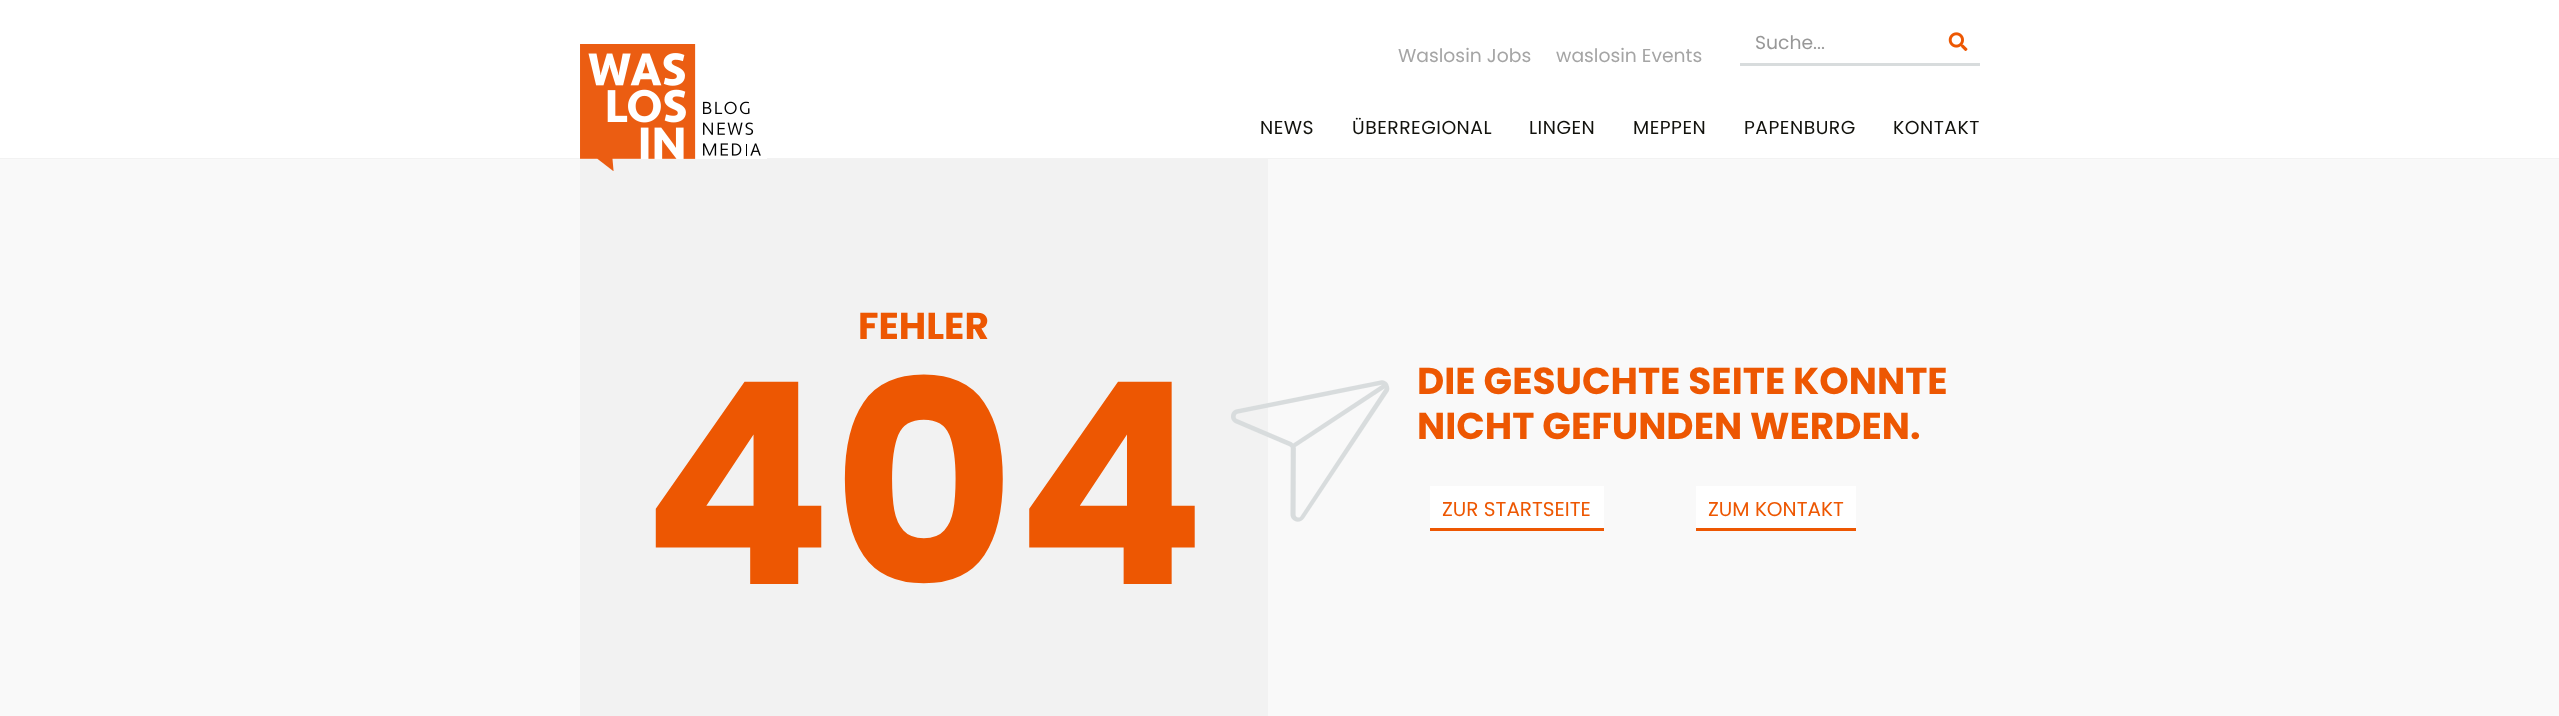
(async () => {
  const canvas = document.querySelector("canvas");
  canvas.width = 2559;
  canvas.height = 716;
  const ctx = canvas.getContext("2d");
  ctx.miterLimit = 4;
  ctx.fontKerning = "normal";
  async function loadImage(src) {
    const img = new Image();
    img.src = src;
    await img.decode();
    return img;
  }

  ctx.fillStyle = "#f9f9f9";
  ctx.fillRect(0, 0, 2559, 716);
  for (const [x, y, w, h, color] of [
    [0, 0, 2559, 158, "#ffffff"],
    [0, 158, 2559, 1, "#f2f2f2"],
    [580, 159, 688, 557, "#f2f2f2"],
  ]) {
    ctx.fillStyle = color;
    ctx.fillRect(x, y, w, h);
  }
  ctx.drawImage(await loadImage("img/1.png"), 580, 44, 187, 127);
  ctx.fillStyle = "#d8dcdd";
  ctx.fillRect(1740, 63, 240, 3);
  ctx.drawImage(await loadImage("img/2.png"), 1948, 32, 20, 19);
  ctx.drawImage(await loadImage("img/3.png"), 1231, 380, 159, 142);
  for (const [x, y, w, h, color] of [
    [1430, 486, 174, 42, "#ffffff"],
    [1430, 528, 174, 3, "#ed5702"],
    [1696, 486, 160, 42, "#ffffff"],
    [1696, 528, 160, 3, "#ed5702"],
  ]) {
    ctx.fillStyle = color;
    ctx.fillRect(x, y, w, h);
  }
  ctx.font = "18.75px Poppins";
  ctx.fillStyle = "#989898";
  ctx.fillText("Suche...", 1755, 49);
  ctx.fillStyle = "#a5a5a5";
  ctx.fillText("Waslosin Jobs", 1398, 62);
  ctx.fillText("waslosin Events", 1556, 62);
  ctx.letterSpacing = "0.5px";
  ctx.fillStyle = "#12120d";
  for (const [text, x, y] of [
    ["NEWS", 1260, 134],
    ["ÜBERREGIONAL", 1352, 134],
    ["LINGEN", 1529, 134],
    ["MEPPEN", 1633, 134],
    ["PAPENBURG", 1744, 134],
    ["KONTAKT", 1893, 134],
  ]) {
    ctx.fillText(text, x, y);
  }
  ctx.letterSpacing = "0px";
  ctx.font = "bold 37.5px Poppins";
  ctx.fillStyle = "#ed5702";
  ctx.fillText("FEHLER", 858, 339);
  ctx.font = "bold 281px Poppins";
  ctx.fillText("404", 642, 584);
  ctx.font = "bold 37.5px Poppins";
  ctx.fillText("DIE GESUCHTE SEITE KONNTE", 1417, 394);
  ctx.fillText("NICHT GEFUNDEN WERDEN.", 1417, 439);
  ctx.font = "20px Poppins";
  ctx.fillText("ZUR STARTSEITE", 1442, 516);
  ctx.fillText("ZUM KONTAKT", 1708, 516);
})();
